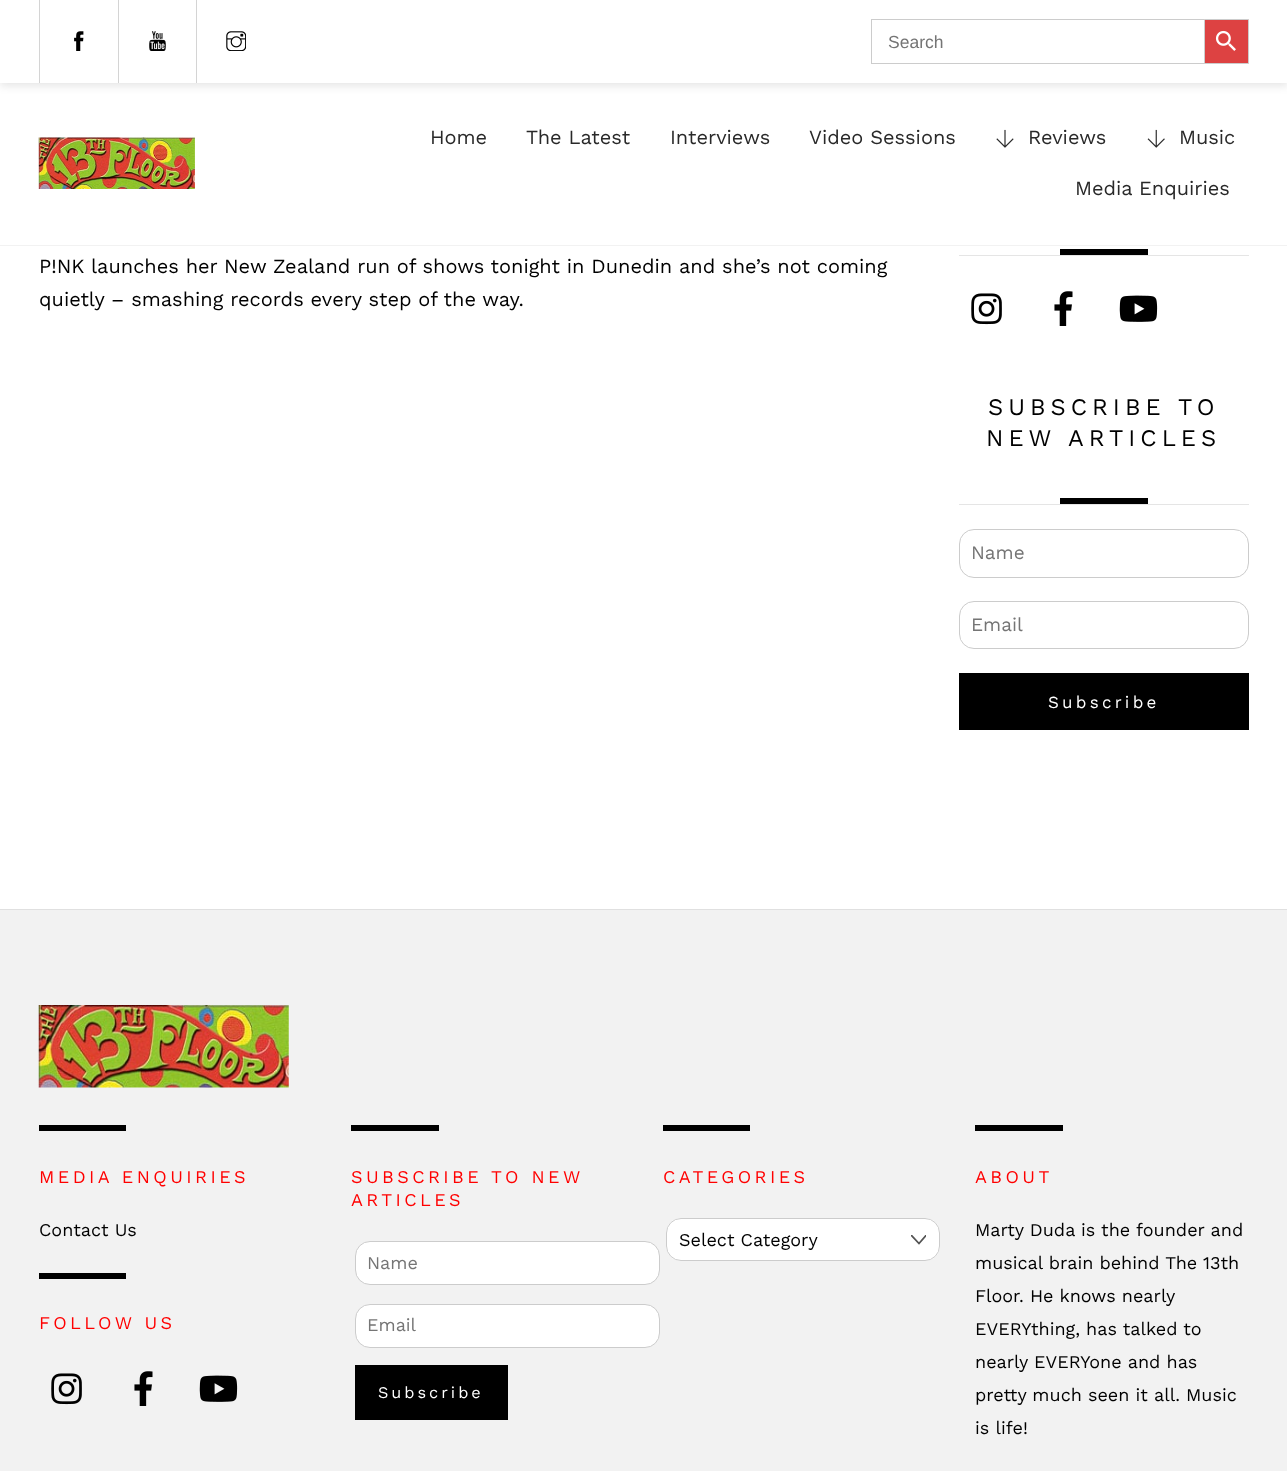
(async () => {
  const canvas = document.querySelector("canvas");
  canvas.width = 1287;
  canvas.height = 1471;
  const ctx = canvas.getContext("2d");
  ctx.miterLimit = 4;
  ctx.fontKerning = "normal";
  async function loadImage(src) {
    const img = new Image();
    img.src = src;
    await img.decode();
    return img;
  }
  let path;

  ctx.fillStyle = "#ffffff";
  ctx.fillRect(0, 0, 1287, 1471);
  ctx.fillStyle = "rgba(0, 0, 0, 0.1)";
  ctx.filter = "blur(4.5px)";
  ctx.beginPath();
  ctx.rect(0, 4, 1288, 82);
  ctx.fill();
  ctx.filter = "none";
  ctx.fillStyle = "#ffffff";
  ctx.fillRect(0, 0, 1287, 83);
  ctx.fillStyle = "#d4d4d4";
  ctx.fillRect(39, 0, 1, 83);
  ctx.drawImage(await loadImage("img/1.png"), 74, 31, 10, 20);
  ctx.fillRect(118, 0, 1, 83);
  ctx.drawImage(await loadImage("img/2.png"), 149, 31, 17, 20);
  ctx.fillRect(196, 0, 1, 83);
  ctx.drawImage(await loadImage("img/3.png"), 226, 31, 20, 20);
  for (const [x, y, w, h, color] of [
    [871, 19, 333, 1, "#cccccc"],
    [871, 63, 333, 1, "#cccccc"],
    [871, 19, 1, 45, "#cccccc"],
  ]) {
    ctx.fillStyle = color;
    ctx.fillRect(x, y, w, h);
  }
  ctx.fillStyle = "#dd4242";
  ctx.beginPath();
  ctx.rect(1204.5, 19.5, 44, 44);
  ctx.fill();
  ctx.strokeStyle = "#cccccc";
  ctx.stroke();
  ctx.drawImage(await loadImage("img/4.png"), 1215, 30, 21, 21);
  ctx.fillStyle = "#f2f2f2";
  ctx.fillRect(0, 245, 1287, 1);
  ctx.drawImage(await loadImage("img/5.png"), 38, 137, 157, 52);
  ctx.drawImage(await loadImage("img/6.png"), 996, 129, 18, 19);
  ctx.drawImage(await loadImage("img/7.png"), 1147, 129, 18, 19);
  ctx.fillStyle = "#e5e5e5";
  ctx.fillRect(959, 255, 290, 1);
  ctx.fillStyle = "#000000";
  ctx.fillRect(1060, 249, 88, 6);
  ctx.drawImage(await loadImage("img/8.png"), 971, 293, 31, 32);
  ctx.drawImage(await loadImage("img/9.png"), 1054, 291, 19, 35);
  ctx.drawImage(await loadImage("img/10.png"), 1119, 295, 39, 27);
  ctx.fillStyle = "#e5e5e5";
  ctx.fillRect(959, 504, 290, 1);
  ctx.fillStyle = "#000000";
  ctx.fillRect(1060, 498, 88, 6);
  ctx.beginPath();
  ctx.roundRect(959.5, 529.5, 289, 48, 14.5);
  ctx.stroke();
  ctx.beginPath();
  ctx.roundRect(959.5, 601.5, 289, 47, 14.5);
  ctx.stroke();
  for (const [x, y, w, h, color] of [
    [959, 673, 290, 57, "#000000"],
    [0, 910, 1287, 561, "#f2f2f2"],
    [0, 909, 1287, 1, "#e0e0e0"],
  ]) {
    ctx.fillStyle = color;
    ctx.fillRect(x, y, w, h);
  }
  ctx.drawImage(await loadImage("img/11.png"), 38, 1005, 251, 83);
  ctx.fillStyle = "#000000";
  ctx.fillRect(39, 1125, 87, 6);
  ctx.fillRect(39, 1273, 87, 6);
  ctx.drawImage(await loadImage("img/12.png"), 51, 1373, 31, 32);
  ctx.drawImage(await loadImage("img/13.png"), 134, 1371, 19, 35);
  ctx.drawImage(await loadImage("img/14.png"), 199, 1375, 39, 27);
  ctx.fillRect(351, 1125, 88, 6);
  ctx.fillStyle = "#ffffff";
  ctx.beginPath();
  ctx.roundRect(355.5, 1241.5, 304, 43, 14.5);
  ctx.fill();
  ctx.stroke();
  ctx.beginPath();
  ctx.roundRect(355.5, 1304.5, 304, 43, 14.5);
  ctx.fill();
  ctx.stroke();
  ctx.fillStyle = "#000000";
  ctx.fillRect(355, 1365, 153, 55);
  ctx.fillRect(663, 1125, 87, 6);
  ctx.fillStyle = "#ffffff";
  ctx.beginPath();
  ctx.roundRect(666, 1218, 274, 43, 15);
  ctx.fill();
  ctx.save();
  ctx.beginPath();
  ctx.rect(911, 1235, 15, 15);
  ctx.clip();
  path = new Path2D("M911.5 1235.5L919 1243.5L926 1235.5");
  ctx.strokeStyle = "#535353";
  ctx.lineWidth = 1.8;
  ctx.lineCap = "round";
  ctx.stroke(path);
  ctx.restore();
  ctx.beginPath();
  ctx.roundRect(666.5, 1218.5, 273, 42, 14.5);
  ctx.stroke();
  ctx.fillStyle = "#000000";
  ctx.fillRect(975, 1125, 88, 6);
  ctx.font = "17.5px Liberation Sans";
  ctx.fillStyle = "#757575";
  ctx.fillText("Search", 888, 48);
  ctx.font = "20px Work Sans";
  ctx.fillStyle = "#292929";
  for (const [text, x, y] of [
    ["Home", 430, 144],
    ["The Latest", 526, 144],
    ["Interviews", 670, 144],
    ["Video Sessions", 809, 144],
    ["Reviews", 1028, 144],
    ["Music", 1179, 144],
    ["Media Enquiries", 1075, 195],
  ]) {
    ctx.fillText(text, x, y);
  }
  ctx.fillStyle = "#000000";
  ctx.fillText("P!NK launches her New Zealand run of shows tonight in Dunedin and she’s not coming", 39, 273);
  ctx.fillText("quietly – smashing records every step of the way.", 39, 306);
  ctx.letterSpacing = "5px";
  ctx.font = "23.75px Work Sans";
  ctx.fillText("SUBSCRIBE TO", 988, 415);
  ctx.fillText("NEW ARTICLES", 986, 446);
  ctx.letterSpacing = "0px";
  ctx.font = "19px Work Sans";
  ctx.fillStyle = "#757575";
  ctx.fillText("Name", 971, 559);
  ctx.fillText("Email", 971, 631);
  ctx.letterSpacing = "3.25px";
  ctx.font = "17px Work Sans";
  ctx.fillStyle = "#ffffff";
  ctx.fillText("Subscribe", 1048, 708);
  ctx.letterSpacing = "3.4px";
  ctx.font = "18px Work Sans";
  ctx.fillStyle = "#ff0000";
  ctx.fillText("MEDIA ENQUIRIES", 39, 1183);
  ctx.letterSpacing = "0px";
  ctx.fillStyle = "#000000";
  ctx.fillText("Contact Us", 39, 1236);
  ctx.letterSpacing = "3.4px";
  ctx.fillStyle = "#ff0000";
  for (const [text, x, y] of [
    ["FOLLOW US", 39, 1329],
    ["SUBSCRIBE TO NEW", 351, 1183],
    ["ARTICLES", 351, 1206],
  ]) {
    ctx.fillText(text, x, y);
  }
  ctx.letterSpacing = "0px";
  ctx.fillStyle = "#757575";
  ctx.fillText("Name", 367, 1269);
  ctx.fillText("Email", 367, 1331);
  ctx.letterSpacing = "3px";
  ctx.font = "16.25px Work Sans";
  ctx.fillStyle = "#ffffff";
  ctx.fillText("Subscribe", 378, 1398);
  ctx.letterSpacing = "3.4px";
  ctx.font = "18px Work Sans";
  ctx.fillStyle = "#ff0000";
  ctx.fillText("CATEGORIES", 663, 1183);
  ctx.letterSpacing = "0px";
  ctx.fillStyle = "#000000";
  ctx.fillText("Select Category", 679, 1246);
  ctx.letterSpacing = "3.4px";
  ctx.fillStyle = "#ff0000";
  ctx.fillText("ABOUT", 975, 1183);
  ctx.letterSpacing = "0px";
  ctx.fillStyle = "#000000";
  for (const [text, x, y] of [
    ["Marty Duda is the founder and", 975, 1236],
    ["musical brain behind The 13th", 975, 1269],
    ["Floor. He knows nearly", 975, 1302],
    ["EVERYthing, has talked to", 975, 1335],
    ["nearly EVERYone and has", 975, 1368],
    ["pretty much seen it all. Music", 975, 1401],
    ["is life!", 975, 1434],
  ]) {
    ctx.fillText(text, x, y);
  }
})();
